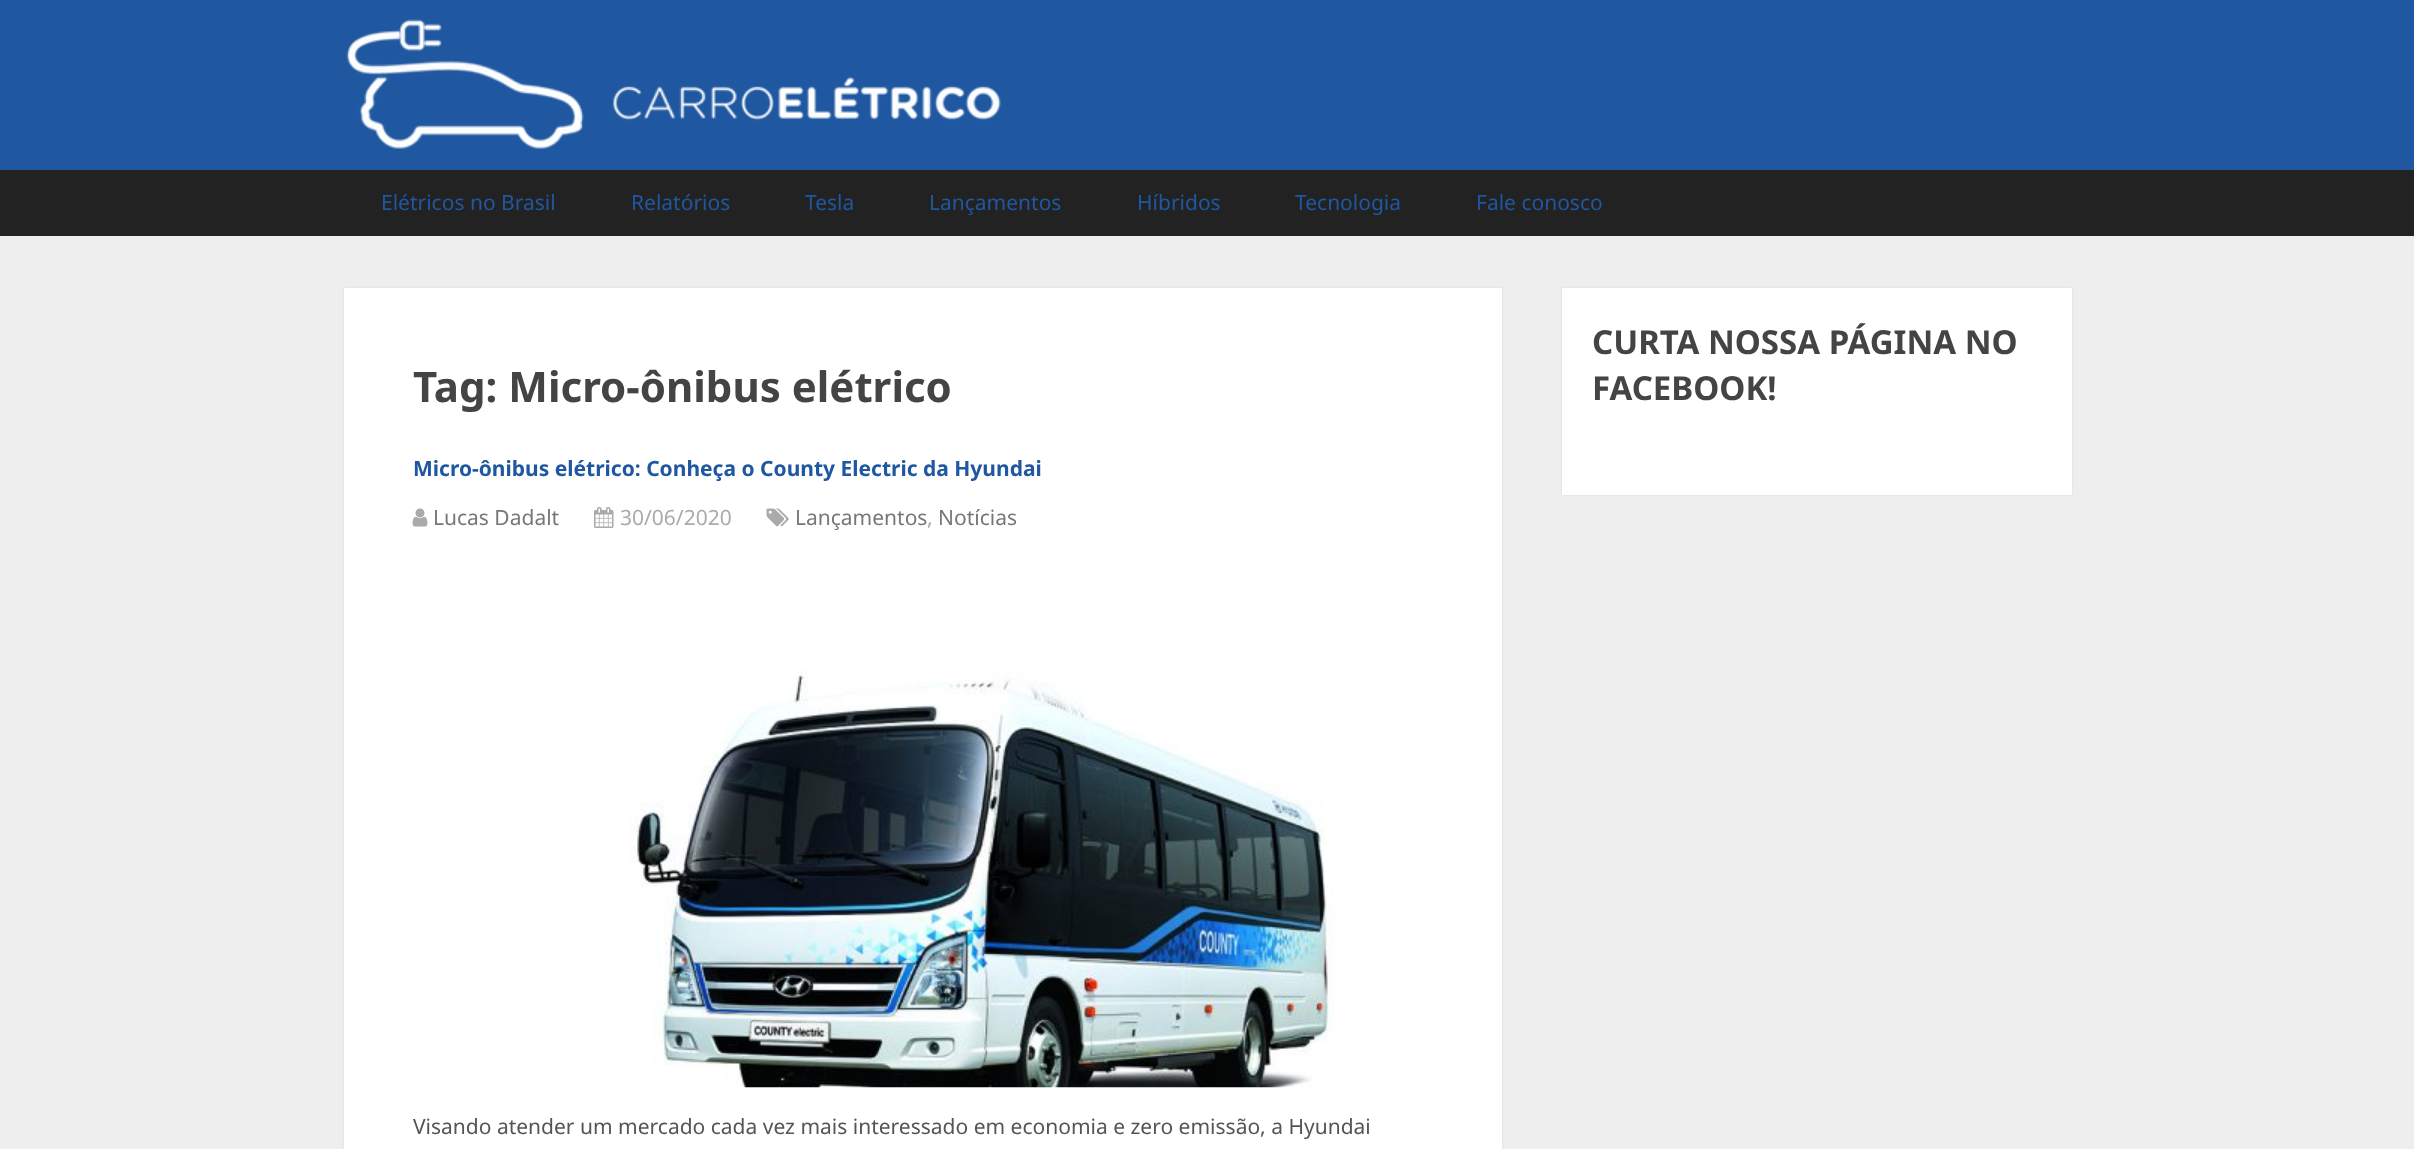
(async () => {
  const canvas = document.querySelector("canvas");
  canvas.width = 2414;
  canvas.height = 1149;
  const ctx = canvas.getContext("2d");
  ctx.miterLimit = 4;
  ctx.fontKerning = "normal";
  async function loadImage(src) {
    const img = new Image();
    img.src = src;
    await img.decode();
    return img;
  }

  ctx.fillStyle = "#eeeeee";
  ctx.fillRect(0, 0, 2414, 1149);
  ctx.fillStyle = "#1f57a0";
  ctx.fillRect(0, 0, 2414, 170);
  ctx.drawImage(await loadImage("img/1.png"), 346, 19, 655, 130);
  ctx.fillStyle = "#222222";
  ctx.fillRect(0, 170, 2414, 66);
  ctx.fillStyle = "rgba(50, 50, 50, 0.1)";
  ctx.filter = "blur(1px)";
  ctx.beginPath();
  ctx.rect(344, 288, 1158, 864);
  ctx.fill();
  ctx.filter = "none";
  ctx.fillStyle = "#ffffff";
  ctx.fillRect(344, 288, 1158, 861);
  ctx.drawImage(await loadImage("img/2.png"), 412, 508, 16, 19);
  ctx.drawImage(await loadImage("img/3.png"), 594, 507, 20, 21);
  ctx.drawImage(await loadImage("img/4.png"), 766, 508, 23, 19);
  ctx.drawImage(await loadImage("img/5.png"), 629, 671, 706, 417);
  ctx.fillStyle = "rgba(50, 50, 50, 0.1)";
  ctx.filter = "blur(1px)";
  ctx.beginPath();
  ctx.rect(1562, 288, 510, 207);
  ctx.fill();
  ctx.filter = "none";
  ctx.fillStyle = "#ffffff";
  ctx.fillRect(1562, 288, 510, 207);
  ctx.font = "21px Noto Sans";
  ctx.fillStyle = "#1f57a0";
  for (const [text, x, y] of [
    ["Elétricos no Brasil", 381, 210],
    ["Relatórios", 631, 210],
    ["Tesla", 805, 210],
    ["Lançamentos", 929, 210],
    ["Híbridos", 1137, 210],
    ["Tecnologia", 1295, 210],
    ["Fale conosco", 1476, 210],
  ]) {
    ctx.fillText(text, x, y);
  }
  ctx.font = "bold 42px Noto Sans";
  ctx.fillStyle = "#444444";
  ctx.fillText("Tag: Micro-ônibus elétrico", 413, 402);
  ctx.font = "bold 21px Noto Sans";
  ctx.fillStyle = "#1f57a0";
  ctx.fillText("Micro-ônibus elétrico: Conheça o County Electric da Hyundai", 413, 476);
  ctx.font = "21px Noto Sans";
  ctx.fillStyle = "#777777";
  ctx.fillText("Lucas Dadalt", 433, 525);
  ctx.fillStyle = "#aaaaaa";
  ctx.fillText("30/06/2020", 620, 525);
  ctx.fillStyle = "#777777";
  ctx.fillText("Lançamentos", 795, 525);
  ctx.fillStyle = "#aaaaaa";
  ctx.fillText(",", 927, 525);
  ctx.fillStyle = "#777777";
  ctx.fillText("Notícias", 938, 525);
  ctx.fillStyle = "#555555";
  ctx.fillText("Visando atender um mercado cada vez mais interessado em economia e zero emissão, a Hyundai", 413, 1134);
  ctx.font = "bold 33px Noto Sans";
  ctx.fillStyle = "#444444";
  ctx.fillText("CURTA NOSSA PÁGINA NO", 1592, 354);
  ctx.fillText("FACEBOOK!", 1592, 400);
})();
